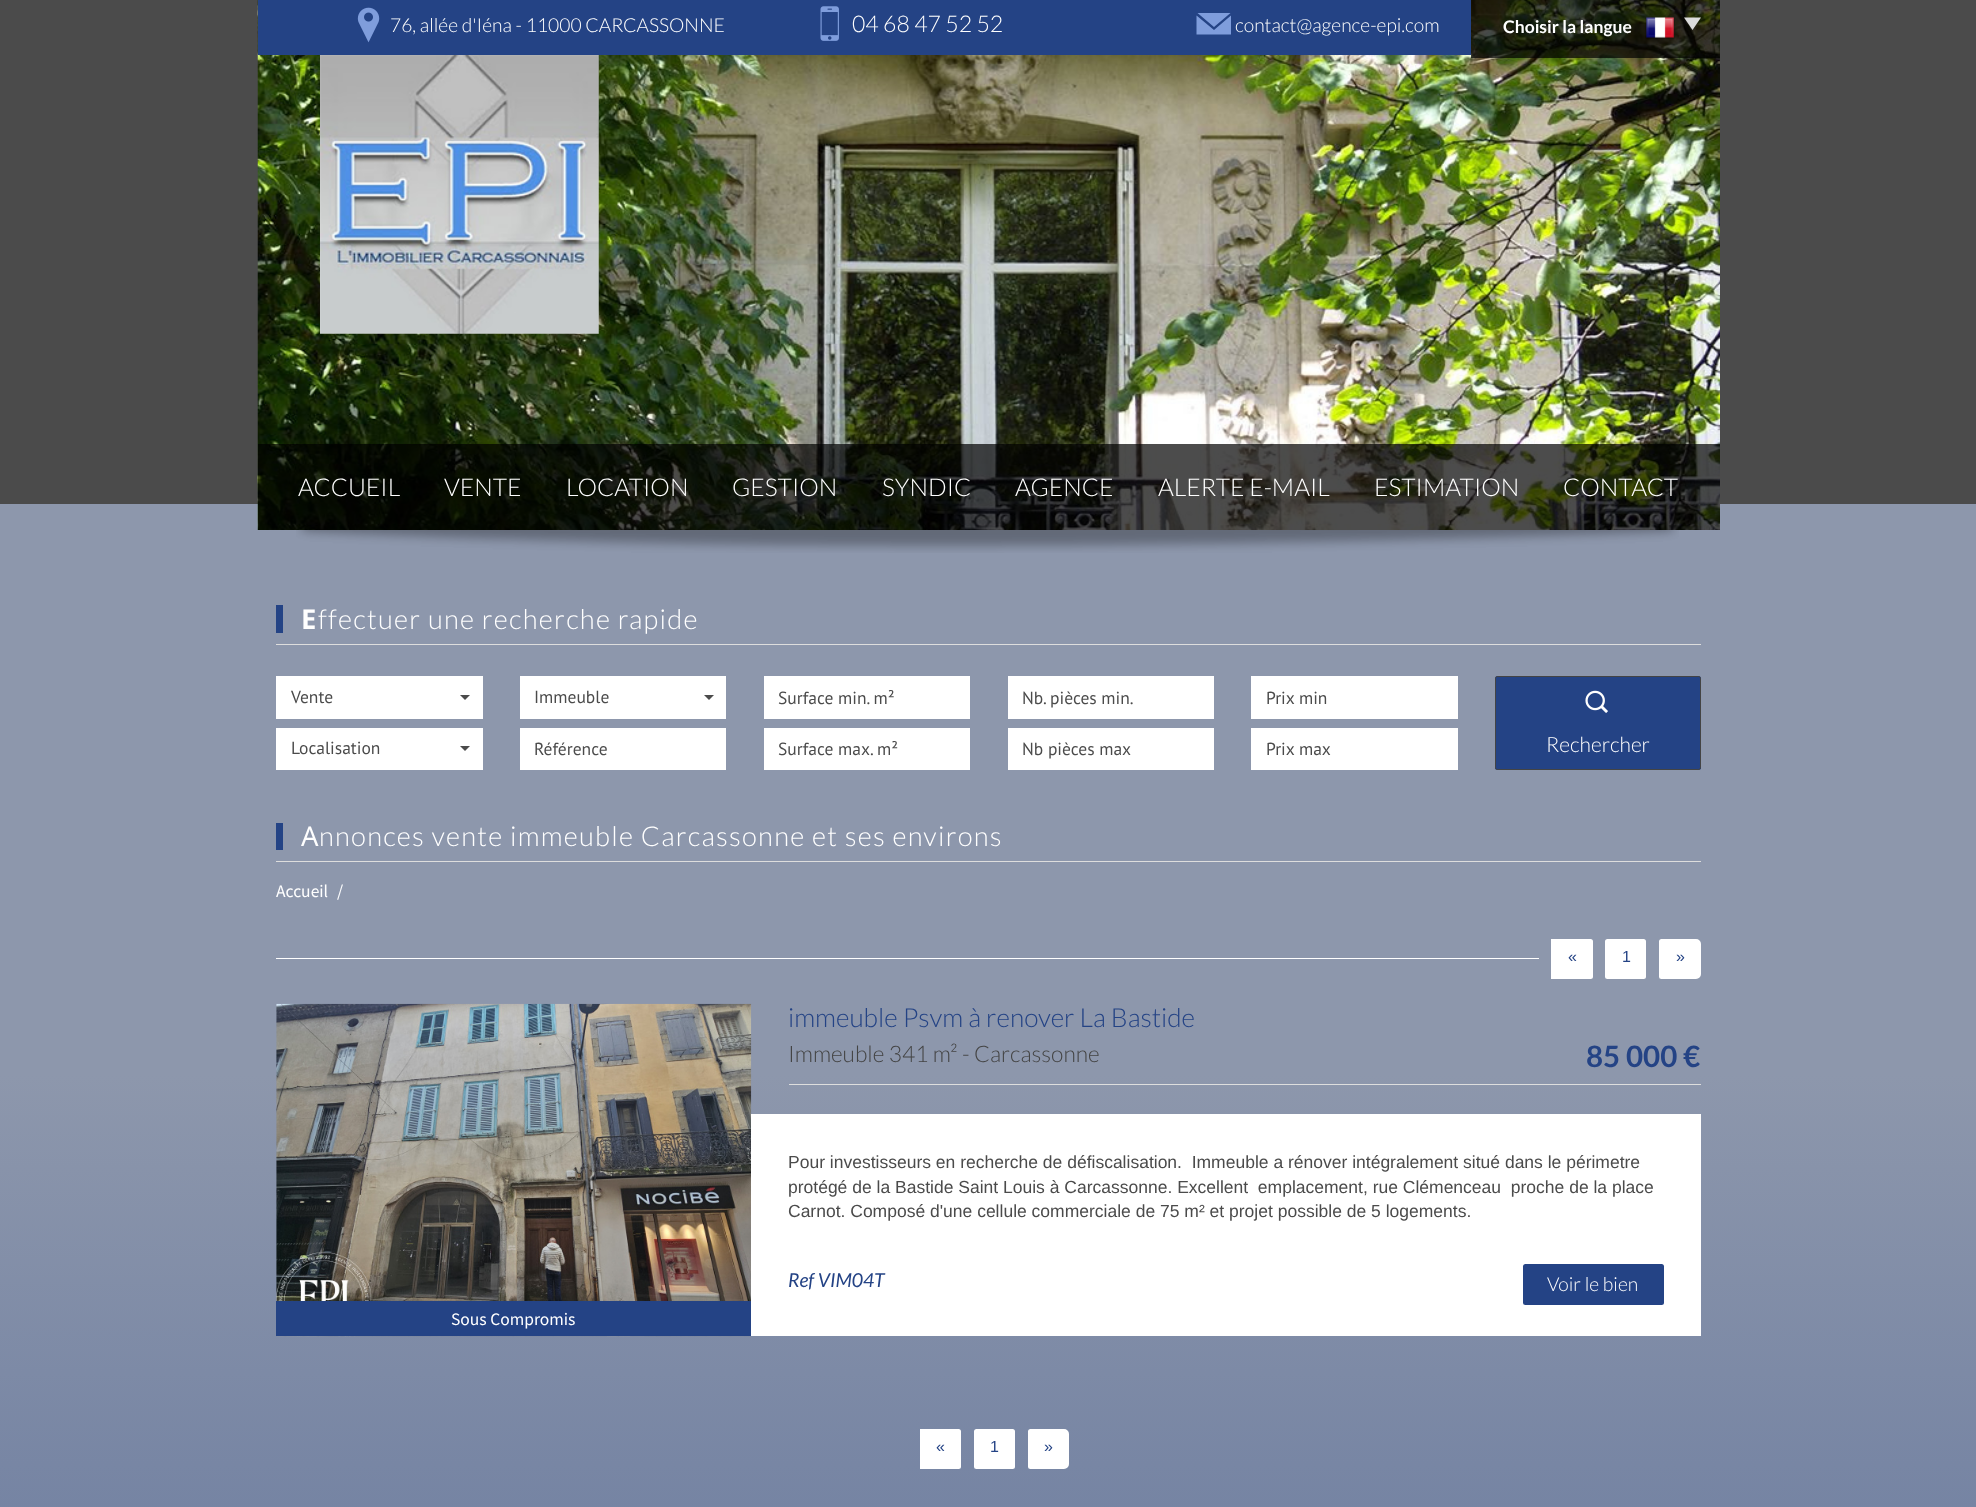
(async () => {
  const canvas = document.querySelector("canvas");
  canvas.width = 1976;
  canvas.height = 1507;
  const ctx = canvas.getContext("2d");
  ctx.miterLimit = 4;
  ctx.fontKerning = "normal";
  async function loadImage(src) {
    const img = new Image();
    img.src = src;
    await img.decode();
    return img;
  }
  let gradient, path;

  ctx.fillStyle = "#ffffff";
  ctx.fillRect(0, 0, 1976, 1507);
  gradient = ctx.createLinearGradient(988, 0, 988, 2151);
  gradient.addColorStop(0, "#8d97ac");
  gradient.addColorStop(0.5, "#8d97ac");
  gradient.addColorStop(1, "#536896");
  ctx.fillStyle = gradient;
  ctx.fillRect(0, 504, 1976, 1003);
  ctx.fillStyle = "#4b4b4b";
  ctx.fillRect(0, 0, 1976, 504);
  ctx.drawImage(await loadImage("img/1.png"), 257, 0, 1463, 530);
  ctx.fillStyle = "#244385";
  ctx.fillRect(258, 0, 1213, 55);
  ctx.drawImage(await loadImage("img/2.png"), 357, 7, 23, 36);
  ctx.drawImage(await loadImage("img/3.png"), 820, 6, 19, 35);
  ctx.fillStyle = "#7f9ddc";
  path = new Path2D("M1197.5 13H1230.5L1214 27ZM1196.5 15.5V34.5H1231V15.5L1214 30Z");
  ctx.fill(path);
  ctx.fillStyle = "rgba(0, 0, 0, 0.7)";
  ctx.fillRect(1471, 0, 249, 58);
  ctx.drawImage(await loadImage("img/4.png"), 1645, 17, 30, 22);
  ctx.fillStyle = "#dcdcdc";
  path = new Path2D("M1684 17.5H1701L1692.5 30Z");
  ctx.fill(path);
  ctx.drawImage(await loadImage("img/5.png"), 320, 55, 279, 279);
  ctx.fillStyle = "rgba(0, 0, 0, 0.7)";
  ctx.fillRect(258, 444, 1462, 86);
  ctx.drawImage(await loadImage("img/6.png"), 296, 530, 1383, 23);
  for (const [x, y, w, h, color] of [
    [276, 605, 7, 28, "#244385"],
    [276, 644, 1425, 1, "#dddddd"],
    [276, 676, 207, 43, "#ffffff"],
  ]) {
    ctx.fillStyle = color;
    ctx.fillRect(x, y, w, h);
  }
  ctx.fillStyle = "#4b4b4b";
  path = new Path2D("M460 695H470L465 700Z");
  ctx.fill(path);
  ctx.fillStyle = "#ffffff";
  ctx.fillRect(276, 728, 207, 42);
  ctx.fillStyle = "#4b4b4b";
  path = new Path2D("M460 746H470L465 751Z");
  ctx.fill(path);
  ctx.fillStyle = "#ffffff";
  ctx.fillRect(520, 676, 206, 43);
  ctx.fillStyle = "#4b4b4b";
  path = new Path2D("M704 695H714L709 700Z");
  ctx.fill(path);
  for (const [x, y, w, h, color] of [
    [520, 728, 206, 42, "#ffffff"],
    [764, 676, 206, 43, "#ffffff"],
    [764, 728, 206, 42, "#ffffff"],
    [1008, 676, 206, 43, "#ffffff"],
    [1008, 728, 206, 42, "#ffffff"],
    [1251, 676, 207, 43, "#ffffff"],
    [1251, 728, 207, 42, "#ffffff"],
  ]) {
    ctx.fillStyle = color;
    ctx.fillRect(x, y, w, h);
  }
  ctx.fillStyle = "#244385";
  ctx.beginPath();
  ctx.roundRect(1495, 676, 206, 94, 2.5);
  ctx.fill();
  ctx.fillRect(1495, 767, 206, 2);
  ctx.beginPath();
  ctx.roundRect(1495.5, 676.5, 205, 93, 2);
  ctx.strokeStyle = "#444444";
  ctx.stroke();
  ctx.drawImage(await loadImage("img/7.png"), 1585, 690, 23, 23);
  for (const [x, y, w, h, color] of [
    [276, 823, 7, 27, "#244385"],
    [276, 861, 1425, 1, "#dddddd"],
    [276, 958, 1263, 1, "#ffffff"],
  ]) {
    ctx.fillStyle = color;
    ctx.fillRect(x, y, w, h);
  }
  ctx.beginPath();
  ctx.roundRect(1551, 939, 42, 40, [0, 2.5, 2.5, 0]);
  ctx.fill();
  ctx.beginPath();
  ctx.roundRect(1605, 939, 41, 40, 2.5);
  ctx.fill();
  ctx.beginPath();
  ctx.roundRect(1659, 939, 42, 40, [2.5, 5, 5, 2.5]);
  ctx.fill();
  ctx.fillStyle = "#dddddd";
  ctx.fillRect(789, 1084, 912, 1);
  ctx.drawImage(await loadImage("img/8.png"), 276, 1003, 476, 334);
  ctx.fillStyle = "#ffffff";
  ctx.fillRect(751, 1114, 950, 222);
  ctx.fillStyle = "#244385";
  ctx.beginPath();
  ctx.roundRect(1523, 1264, 141, 41, 2.5);
  ctx.fill();
  ctx.fillRect(276, 1301, 475, 35);
  ctx.fillStyle = "#ffffff";
  ctx.beginPath();
  ctx.roundRect(920, 1429, 41, 40, [0, 2.5, 2.5, 0]);
  ctx.fill();
  ctx.beginPath();
  ctx.roundRect(974, 1429, 41, 40, 2.5);
  ctx.fill();
  ctx.beginPath();
  ctx.roundRect(1028, 1429, 41, 40, [2.5, 5, 5, 2.5]);
  ctx.fill();
  ctx.font = "300 19.25px Lato";
  ctx.fillText("76, allée d'Iéna - 11000 CARCASSONNE", 390, 32);
  ctx.font = "300 23px Lato";
  ctx.fillText("04 68 47 52 52", 852, 32);
  ctx.font = "300 19.25px Lato";
  ctx.fillText("contact@agence-epi.com", 1235, 32);
  ctx.font = "bold 17.5px Lato";
  ctx.fillText("Choisir la langue", 1503, 33);
  ctx.font = "300 24.5px Lato";
  for (const [text, x, y] of [
    ["ACCUEIL", 298, 496],
    ["VENTE", 444, 496],
    ["LOCATION", 566, 496],
    ["GESTION", 732, 496],
    ["SYNDIC", 882, 496],
    ["AGENCE", 1015, 496],
    ["ALERTE E-MAIL", 1158, 496],
    ["ESTIMATION", 1374, 496],
    ["CONTACT", 1563, 496],
  ]) {
    ctx.fillText(text, x, y);
  }
  ctx.letterSpacing = "1.25px";
  ctx.font = "bold 27.35px Noto Sans";
  ctx.fillText("E", 301, 629);
  ctx.font = "300 27.35px Lato";
  ctx.fillText("ffectuer une recherche rapide", 318, 629);
  ctx.letterSpacing = "0px";
  ctx.font = "17.5px PT Sans";
  ctx.fillStyle = "#4b4b4b";
  for (const [text, x, y] of [
    ["Vente", 291, 703],
    ["Localisation", 291, 754],
    ["Immeuble", 534, 703],
    ["Référence", 534, 755],
    ["Surface min. m²", 778, 704],
    ["Surface max. m²", 778, 755],
    ["Nb. pièces min.", 1022, 704],
    ["Nb pièces max", 1022, 755],
    ["Prix min", 1266, 704],
    ["Prix max", 1266, 755],
  ]) {
    ctx.fillText(text, x, y);
  }
  ctx.font = "300 21px Lato";
  ctx.fillStyle = "#ffffff";
  ctx.fillText("Rechercher", 1546, 752);
  ctx.letterSpacing = "1.25px";
  ctx.font = "27.35px Noto Sans";
  ctx.fillText("A", 301, 846);
  ctx.font = "300 27.35px Lato";
  ctx.fillText("nnonces vente immeuble Carcassonne et ses environs", 319, 846);
  ctx.letterSpacing = "0px";
  ctx.font = "17.5px Source Sans Pro";
  ctx.fillText("Accueil", 276, 897);
  ctx.fillText("/", 337, 897);
  ctx.font = "16px Liberation Sans";
  ctx.fillStyle = "#244385";
  for (const [text, x, y] of [
    ["«", 1568, 962],
    ["1", 1622, 962],
    ["»", 1676, 962],
  ]) {
    ctx.fillText(text, x, y);
  }
  ctx.font = "300 26.25px Lato";
  ctx.fillText("immeuble Psvm à renover La Bastide", 788, 1027);
  ctx.font = "300 22.75px Lato";
  ctx.fillStyle = "#444444";
  ctx.fillText("Immeuble 341 m² - Carcassonne", 788, 1062);
  ctx.font = "bold 29.5px Lato";
  ctx.fillStyle = "#244385";
  ctx.fillText("85 000 €", 1586, 1067);
  ctx.font = "17.5px Liberation Sans";
  ctx.fillStyle = "#4b4b4b";
  for (const [text, x, y] of [
    ["Pour investisseurs en recherche de défiscalisation.  Immeuble a rénover intégralement situé dans le périmetre", 788, 1168],
    ["protégé de la Bastide Saint Louis à Carcassonne. Excellent  emplacement, rue Clémenceau  proche de la place", 788, 1193],
    ["Carnot. Composé d'une cellule commerciale de 75 m² et projet possible de 5 logements.", 788, 1217],
  ]) {
    ctx.fillText(text, x, y);
  }
  ctx.font = "italic 19.25px Lato";
  ctx.fillStyle = "#244385";
  ctx.fillText("Ref VIM04T", 788, 1287);
  ctx.font = "300 19.25px Lato";
  ctx.fillStyle = "#ffffff";
  ctx.fillText("Voir le bien", 1547, 1291);
  ctx.font = "17.5px Source Sans Pro";
  ctx.fillText("Sous Compromis", 451, 1325);
  ctx.font = "16px Liberation Sans";
  ctx.fillStyle = "#244385";
  for (const [text, x, y] of [
    ["«", 936, 1452],
    ["1", 990, 1452],
    ["»", 1044, 1452],
  ]) {
    ctx.fillText(text, x, y);
  }
})();
